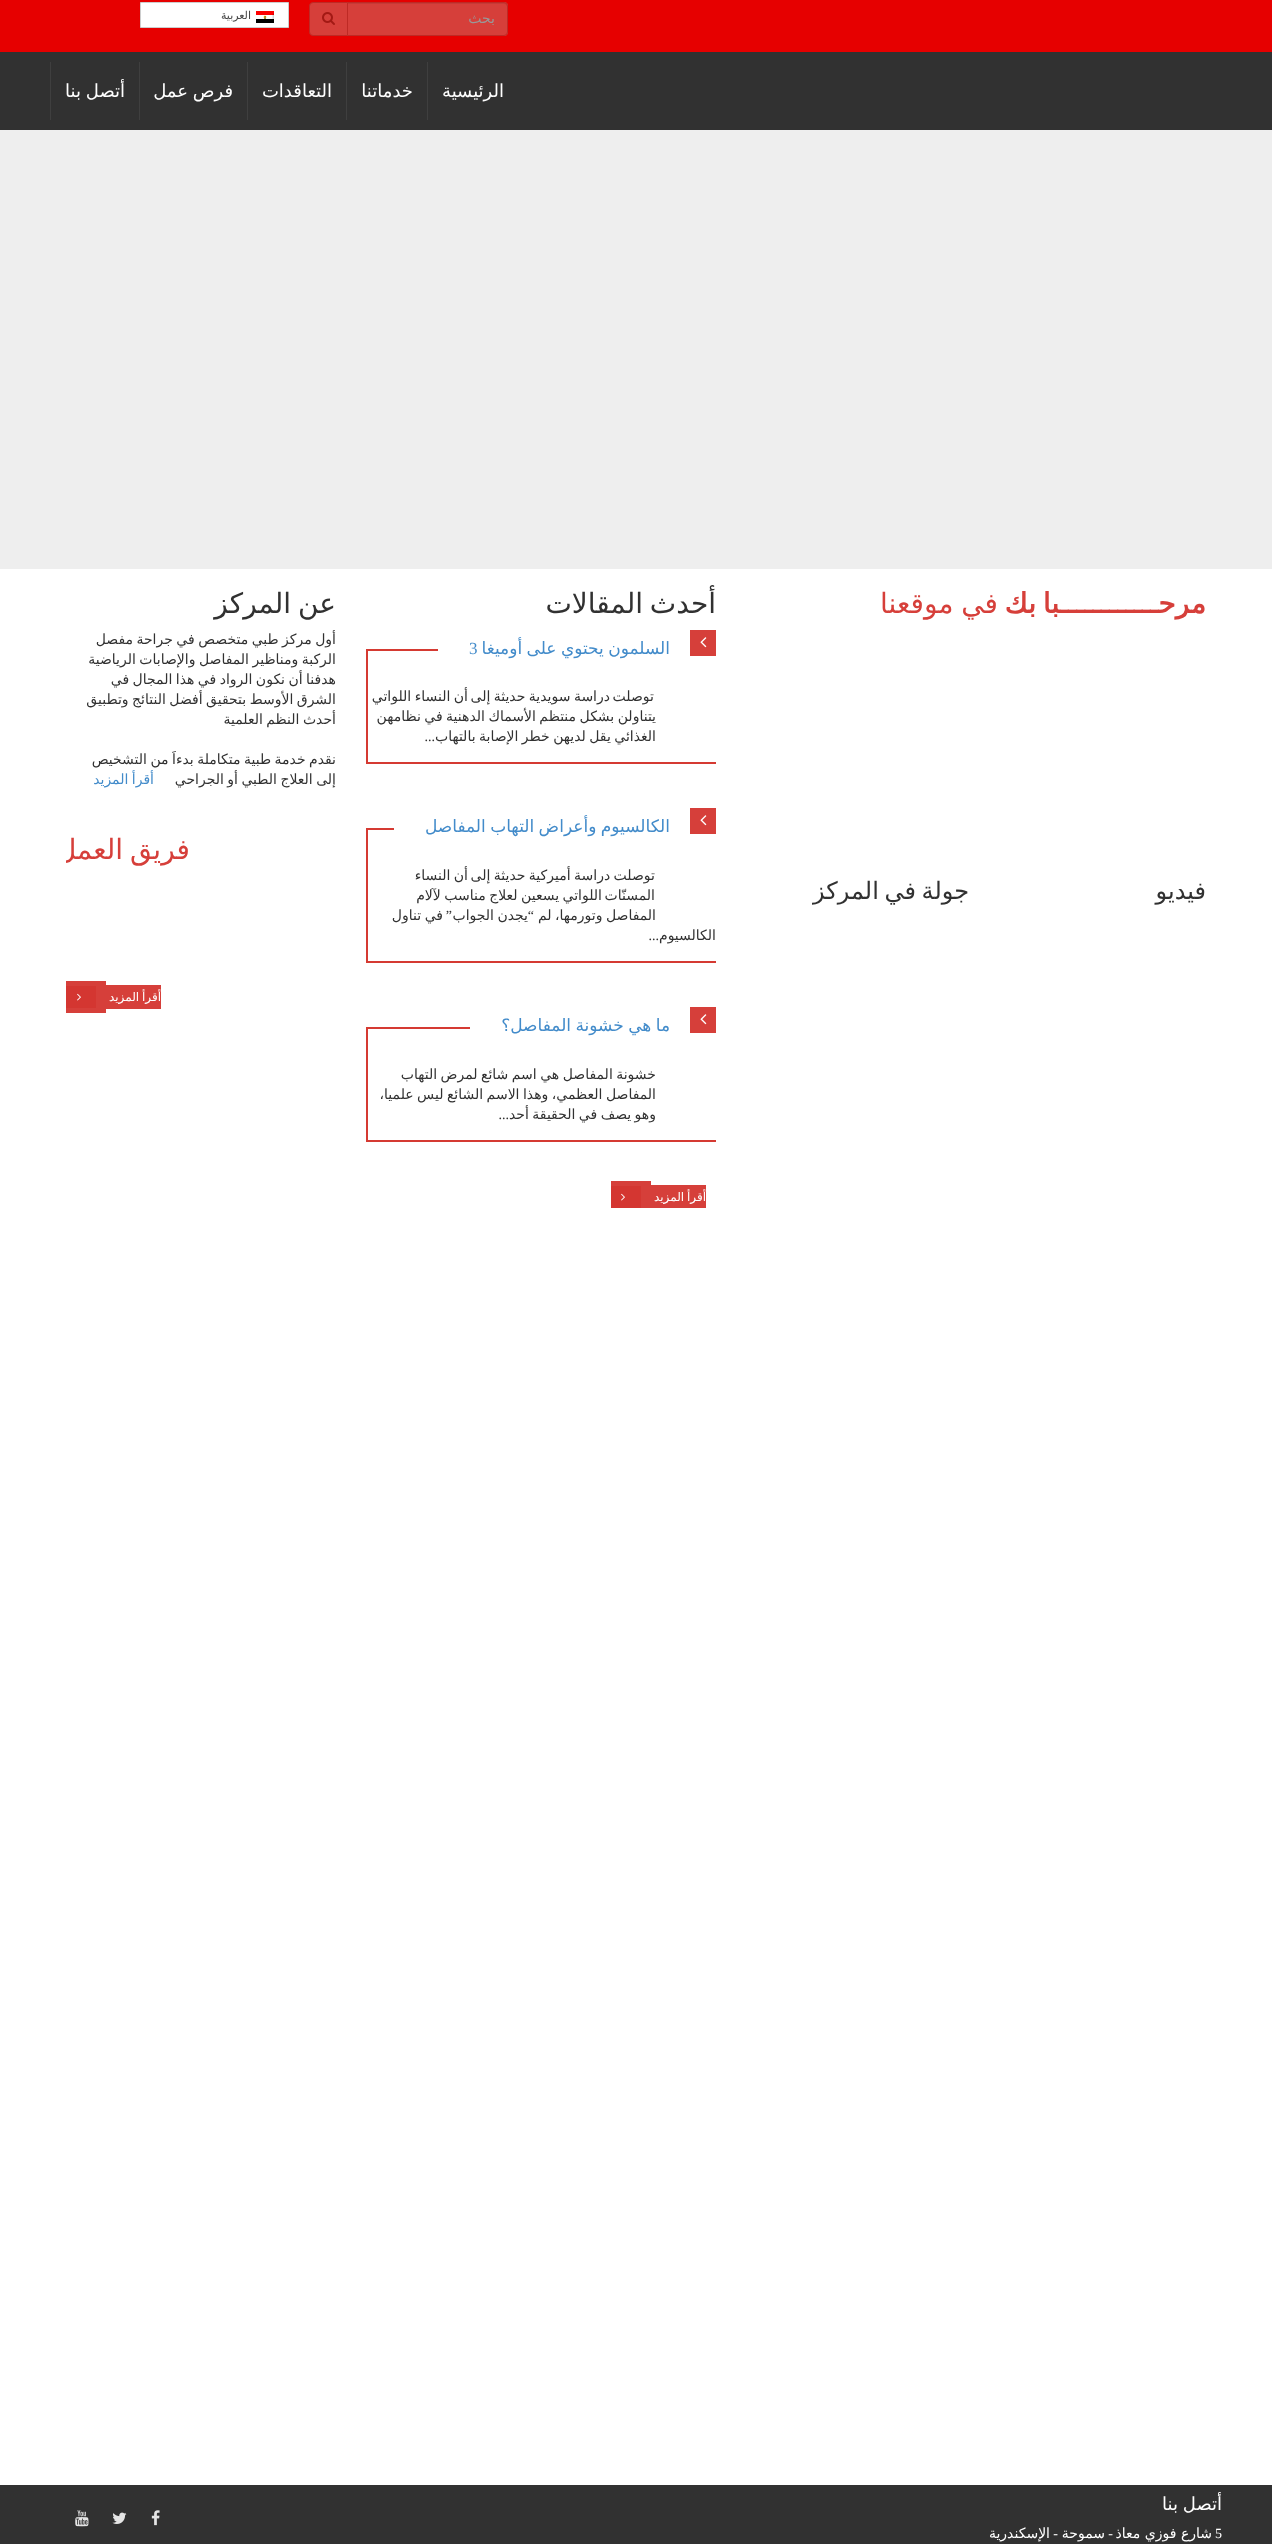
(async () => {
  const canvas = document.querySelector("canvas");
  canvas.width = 1272;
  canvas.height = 2544;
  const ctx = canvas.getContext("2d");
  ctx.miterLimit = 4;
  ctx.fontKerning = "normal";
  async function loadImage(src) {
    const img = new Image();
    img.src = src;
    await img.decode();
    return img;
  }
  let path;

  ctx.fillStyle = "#ffffff";
  ctx.fillRect(0, 0, 1272, 2544);
  ctx.fillStyle = "#e60000";
  ctx.fillRect(0, 0, 1272, 52);
  ctx.fillStyle = "#d63f3a";
  ctx.beginPath();
  ctx.roundRect(347, 2, 161, 34, [0, 4, 4, 0]);
  ctx.fill();
  ctx.fillStyle = "#c63a36";
  path = new Path2D("M348 4H504C506 4 507 5 507 7C507 5 507 3 505 3H348Z");
  ctx.fill(path);
  ctx.beginPath();
  ctx.roundRect(347.5, 2.5, 160, 33, [0, 3.5, 3.5, 0]);
  ctx.strokeStyle = "#be2a25";
  ctx.stroke();
  ctx.fillStyle = "#d63f3a";
  ctx.beginPath();
  ctx.roundRect(309.5, 2.5, 38, 33, [3.5, 0, 0, 3.5]);
  ctx.fill();
  ctx.stroke();
  ctx.drawImage(await loadImage("img/1.png"), 322, 12, 13, 13);
  ctx.fillStyle = "#ffffff";
  ctx.beginPath();
  ctx.rect(140.5, 2.5, 148, 25);
  ctx.fill();
  ctx.strokeStyle = "#cdcdcd";
  ctx.stroke();
  ctx.drawImage(await loadImage("img/2.png"), 256, 11, 18, 12);
  for (const [x, y, w, h, color] of [
    [0, 52, 1272, 78, "#313131"],
    [427, 62, 1, 58, "#3f3f3f"],
    [346, 62, 1, 58, "#3f3f3f"],
    [247, 62, 1, 58, "#3f3f3f"],
    [139, 62, 1, 58, "#3f3f3f"],
    [50, 62, 1, 58, "#3f3f3f"],
    [0, 130, 1272, 439, "#eeeeee"],
    [690, 630, 26, 26, "#d63f3a"],
  ]) {
    ctx.fillStyle = color;
    ctx.fillRect(x, y, w, h);
  }
  ctx.drawImage(await loadImage("img/3.png"), 700, 637, 7, 11);
  for (const [x, y, w, h, color] of [
    [366, 649, 72, 2, "#d53a32"],
    [366, 762, 350, 2, "#d53a32"],
    [366, 649, 2, 115, "#d53a32"],
    [690, 808, 26, 26, "#d63f3a"],
  ]) {
    ctx.fillStyle = color;
    ctx.fillRect(x, y, w, h);
  }
  ctx.drawImage(await loadImage("img/3.png"), 700, 815, 7, 11);
  for (const [x, y, w, h, color] of [
    [366, 828, 28, 2, "#d53a32"],
    [366, 961, 350, 2, "#d53a32"],
    [366, 828, 2, 135, "#d53a32"],
    [690, 1007, 26, 26, "#d63f3a"],
  ]) {
    ctx.fillStyle = color;
    ctx.fillRect(x, y, w, h);
  }
  ctx.drawImage(await loadImage("img/3.png"), 700, 1014, 7, 11);
  for (const [x, y, w, h, color] of [
    [366, 1027, 104, 2, "#d53a32"],
    [366, 1140, 350, 2, "#d53a32"],
    [366, 1027, 2, 115, "#d53a32"],
    [651, 1185, 55, 23, "#d63f3a"],
    [611, 1181, 40, 27, "#d63f3a"],
    [611, 1186, 30, 22, "#d43631"],
  ]) {
    ctx.fillStyle = color;
    ctx.fillRect(x, y, w, h);
  }
  ctx.drawImage(await loadImage("img/4.png"), 621, 1193, 4, 8);
  for (const [x, y, w, h, color] of [
    [106, 985, 55, 24, "#d63f3a"],
    [66, 981, 40, 32, "#d63f3a"],
    [66, 986, 30, 22, "#d43631"],
  ]) {
    ctx.fillStyle = color;
    ctx.fillRect(x, y, w, h);
  }
  ctx.drawImage(await loadImage("img/4.png"), 77, 993, 4, 8);
  ctx.fillStyle = "#313131";
  ctx.fillRect(0, 2485, 1272, 59);
  ctx.drawImage(await loadImage("img/5.png"), 151, 2510, 9, 16);
  ctx.drawImage(await loadImage("img/6.png"), 112, 2512, 15, 12);
  ctx.drawImage(await loadImage("img/7.png"), 75, 2510, 14, 17);
  ctx.direction = "rtl";
  ctx.font = "14px DejaVu Sans";
  ctx.fillStyle = "#999999";
  ctx.fillText("بحث", 495, 23);
  ctx.font = "11px DejaVu Sans";
  ctx.fillStyle = "#444444";
  ctx.fillText("العربية", 251, 19);
  ctx.font = "18px DejaVu Sans";
  ctx.fillStyle = "#ffffff";
  for (const [text, x, y] of [
    ["الرئيسية", 504, 97],
    ["خدماتنا", 413, 97],
    ["التعاقدات", 332, 97],
  ]) {
    ctx.fillText(text, x, y);
  }
  ctx.wordSpacing = "-1px";
  ctx.fillText("فرص عمل", 233, 97);
  ctx.fillText("أتصل بنا", 125, 97);
  ctx.wordSpacing = "-2px";
  ctx.font = "bold 28px DejaVu Sans";
  ctx.fillStyle = "#d63f3a";
  ctx.fillText("مرحــــــــــــبا بك", 1206, 613);
  ctx.wordSpacing = "-1px";
  ctx.font = "28px DejaVu Sans";
  ctx.fillText("في موقعنا", 998, 613);
  ctx.wordSpacing = "0px";
  ctx.font = "24px DejaVu Sans";
  ctx.fillStyle = "#313131";
  ctx.fillText("فيديو", 1206, 899);
  ctx.wordSpacing = "-2px";
  ctx.fillText("جولة في المركز", 969, 899);
  ctx.font = "28px DejaVu Sans";
  ctx.fillText("أحدث المقالات", 716, 613);
  ctx.wordSpacing = "-1px";
  ctx.font = "17px DejaVu Sans";
  ctx.fillStyle = "#428bca";
  ctx.fillText("السلمون يحتوي على أوميغا", 670, 654);
  ctx.wordSpacing = "0px";
  ctx.direction = "ltr";
  ctx.font = "17px Liberation Serif";
  ctx.fillText("3", 469, 654);
  ctx.direction = "rtl";
  ctx.font = "14px DejaVu Sans";
  ctx.fillStyle = "#313131";
  ctx.fillText("توصلت", 654, 701);
  ctx.wordSpacing = "-1px";
  for (const [text, x, y] of [
    ["دراسة سويدية حديثة إلى", 610, 701],
    ["أن النساء اللواتي", 468, 701],
    ["يتناولن بشكل منتظم الأسماك الدهنية في نظامهن", 656, 721],
    ["الغذائي يقل لديهن خطر الإصابة بالتهاب", 656, 741],
  ]) {
    ctx.fillText(text, x, y);
  }
  ctx.wordSpacing = "0px";
  ctx.font = "14px Liberation Serif";
  ctx.fillText("...", 435, 741);
  ctx.wordSpacing = "-1px";
  ctx.font = "17px DejaVu Sans";
  ctx.fillStyle = "#428bca";
  ctx.fillText("الكالسيوم وأعراض التهاب المفاصل", 670, 832);
  ctx.font = "14px DejaVu Sans";
  ctx.fillStyle = "#313131";
  ctx.fillText("توصلت دراسة أميركية حديثة إلى", 655, 880);
  ctx.fillText("أن النساء", 468, 880);
  ctx.wordSpacing = "0px";
  ctx.fillText("المسنّات", 655, 900);
  ctx.wordSpacing = "-1px";
  for (const [text, x, y] of [
    ["اللواتي يسعين لعلاج مناسب لآلام", 602, 900],
    ["المفاصل وتورمها، لم", 656, 920],
    ["يجدن الجواب", 528, 920],
  ]) {
    ctx.fillText(text, x, y);
  }
  ctx.wordSpacing = "0px";
  ctx.font = "14px Liberation Serif";
  ctx.fillText("“", 534, 920);
  ctx.fillText("”", 452, 920);
  ctx.wordSpacing = "-1px";
  ctx.font = "14px DejaVu Sans";
  ctx.fillText("في تناول", 443, 920);
  ctx.wordSpacing = "0px";
  ctx.fillText("الكالسيوم", 716, 940);
  ctx.font = "14px Liberation Serif";
  ctx.fillText("...", 659, 940);
  ctx.wordSpacing = "-1px";
  ctx.font = "17px DejaVu Sans";
  ctx.fillStyle = "#428bca";
  ctx.fillText("ما هي خشونة المفاصل؟", 670, 1031);
  ctx.font = "14px DejaVu Sans";
  ctx.fillStyle = "#313131";
  for (const [text, x, y] of [
    ["خشونة المفاصل هي اسم شائع لمرض التهاب", 656, 1079],
    ["المفاصل العظمي، وهذا الاسم الشائع ليس علميا،", 656, 1099],
    ["وهو يصف في الحقيقة أحد", 656, 1119],
  ]) {
    ctx.fillText(text, x, y);
  }
  ctx.wordSpacing = "0px";
  ctx.font = "14px Liberation Serif";
  ctx.fillText("...", 509, 1119);
  ctx.wordSpacing = "-1px";
  ctx.font = "12px DejaVu Sans";
  ctx.fillStyle = "#ffffff";
  ctx.fillText("أقرأ المزيد", 706, 1201);
  ctx.wordSpacing = "-2px";
  ctx.font = "28px DejaVu Sans";
  ctx.fillStyle = "#313131";
  ctx.fillText("عن المركز", 336, 613);
  ctx.wordSpacing = "-1px";
  ctx.font = "14px DejaVu Sans";
  for (const [text, x, y] of [
    ["أول مركز طبي متخصص في جراحة مفصل", 336, 644],
    ["الركبة ومناظير المفاصل والإصابات الرياضية", 336, 664],
    ["هدفنا أن نكون الرواد في هذا المجال في", 336, 684],
    ["الشرق الأوسط بتحقيق أفضل النتائج وتطبيق", 336, 704],
    ["أحدث النظم العلمية", 336, 724],
    ["نقدم خدمة طبية متكاملة بدءاَ من التشخيص", 336, 764],
    ["إلى العلاج الطبي أو الجراحي", 336, 784],
  ]) {
    ctx.fillText(text, x, y);
  }
  ctx.fillStyle = "#428bca";
  ctx.fillText("أقرأ المزيد", 154, 784);
  ctx.save();
  ctx.beginPath();
  ctx.rect(66, 569, 1140, 639);
  ctx.clip();
  ctx.wordSpacing = "-2px";
  ctx.font = "28px DejaVu Sans";
  ctx.fillStyle = "#d63f3a";
  ctx.fillText("فريق العمل", 190, 859);
  ctx.restore();
  ctx.font = "12px DejaVu Sans";
  ctx.fillStyle = "#ffffff";
  ctx.fillText("أقرأ المزيد", 161, 1001);
  ctx.font = "18px DejaVu Sans";
  ctx.fillText("أتصل بنا", 1222, 2510);
  ctx.wordSpacing = "0px";
  ctx.direction = "ltr";
  ctx.font = "14px Liberation Serif";
  ctx.fillText("5", 1215, 2538);
  ctx.direction = "rtl";
  ctx.font = "14px DejaVu Sans";
  ctx.fillText("شارع فوزي معاذ", 1212, 2538);
  ctx.font = "14px Liberation Serif";
  ctx.fillText("-", 1113, 2538);
  ctx.font = "14px DejaVu Sans";
  ctx.fillText("سموحة", 1105, 2538);
  ctx.font = "14px Liberation Serif";
  ctx.fillText("-", 1058, 2538);
  ctx.font = "14px DejaVu Sans";
  ctx.fillText("الإسكندرية", 1050, 2538);
})();
